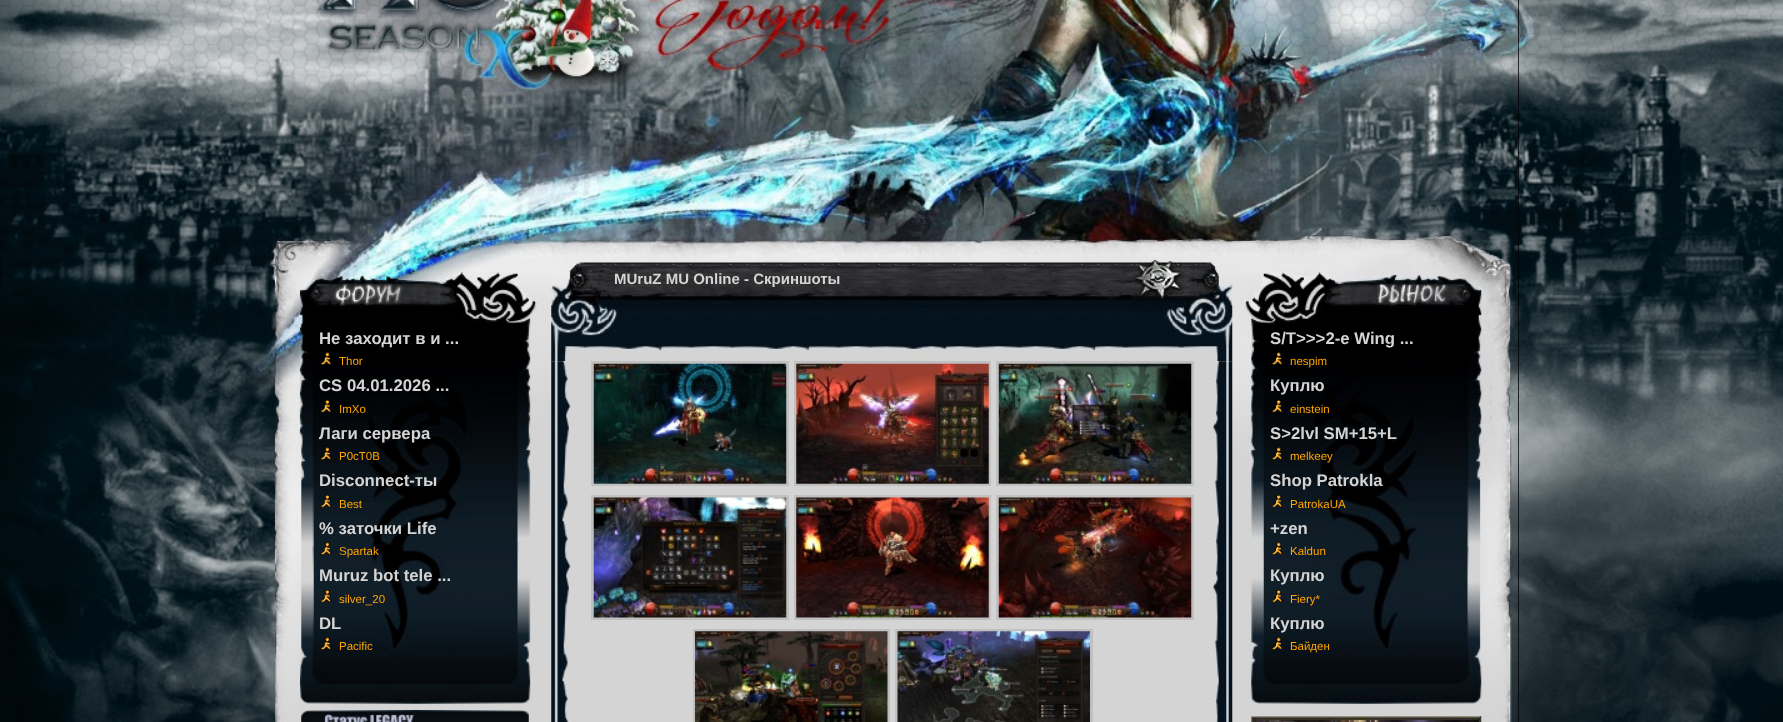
(async () => {
  const canvas = document.querySelector("canvas");
  canvas.width = 1783;
  canvas.height = 722;
  const ctx = canvas.getContext("2d");
  ctx.miterLimit = 4;
  ctx.fontKerning = "normal";
  async function loadImage(src) {
    const img = new Image();
    img.src = src;
    await img.decode();
    return img;
  }

  ctx.fillStyle = "#ffffff";
  ctx.fillRect(0, 0, 1783, 722);
  ctx.drawImage(await loadImage("img/1.png"), 0, 0, 265, 722);
  ctx.drawImage(await loadImage("img/2.png"), 265, 0, 1253, 722);
  ctx.drawImage(await loadImage("img/14.png"), 275, 241, 277, 481);
  ctx.drawImage(await loadImage("img/3.png"), 551, 260, 682, 102);
  ctx.drawImage(await loadImage("img/4.png"), 551, 361, 25, 361);
  ctx.fillStyle = "#d4d4d4";
  ctx.fillRect(576, 361, 632, 98);
  ctx.strokeStyle = "#c0c0c0";
  ctx.lineWidth = 3;
  ctx.strokeRect(592.5, 362.5, 195, 122);
  ctx.strokeRect(795.5, 362.5, 194, 122);
  ctx.strokeRect(997.5, 362.5, 195, 122);
  ctx.drawImage(await loadImage("img/5.png"), 593, 363, 194, 121);
  ctx.drawImage(await loadImage("img/6.png"), 796, 363, 193, 121);
  ctx.drawImage(await loadImage("img/7.png"), 998, 363, 194, 121);
  ctx.strokeRect(592.5, 496.5, 195, 122);
  ctx.strokeRect(795.5, 496.5, 194, 122);
  ctx.strokeRect(997.5, 496.5, 195, 122);
  ctx.drawImage(await loadImage("img/8.png"), 593, 497, 194, 121);
  ctx.drawImage(await loadImage("img/9.png"), 796, 497, 193, 121);
  ctx.drawImage(await loadImage("img/10.png"), 998, 497, 194, 121);
  ctx.strokeRect(694.5, 630.5, 194, 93);
  ctx.strokeRect(896.5, 630.5, 195, 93);
  ctx.drawImage(await loadImage("img/11.png"), 695, 631, 193, 91);
  ctx.drawImage(await loadImage("img/12.png"), 897, 631, 193, 91);
  ctx.drawImage(await loadImage("img/13.png"), 1208, 361, 25, 361);
  ctx.drawImage(await loadImage("img/15.png"), 300, 272, 237, 432);
  ctx.drawImage(await loadImage("img/16.png"), 320, 352, 12, 13);
  ctx.drawImage(await loadImage("img/17.png"), 320, 400, 12, 13);
  ctx.drawImage(await loadImage("img/18.png"), 320, 447, 12, 13);
  ctx.drawImage(await loadImage("img/19.png"), 320, 495, 12, 13);
  ctx.drawImage(await loadImage("img/20.png"), 320, 542, 12, 13);
  ctx.drawImage(await loadImage("img/21.png"), 320, 590, 12, 13);
  ctx.drawImage(await loadImage("img/22.png"), 320, 637, 12, 13);
  ctx.drawImage(await loadImage("img/23.png"), 301, 710, 228, 12);
  ctx.drawImage(await loadImage("img/24.png"), 1232, 241, 278, 481);
  ctx.drawImage(await loadImage("img/25.png"), 1245, 272, 237, 432);
  ctx.drawImage(await loadImage("img/26.png"), 1271, 352, 12, 13);
  ctx.drawImage(await loadImage("img/27.png"), 1272, 400, 11, 13);
  ctx.drawImage(await loadImage("img/28.png"), 1272, 447, 11, 13);
  ctx.drawImage(await loadImage("img/29.png"), 1272, 495, 11, 13);
  ctx.drawImage(await loadImage("img/30.png"), 1272, 542, 11, 13);
  ctx.drawImage(await loadImage("img/31.png"), 1271, 590, 12, 13);
  ctx.drawImage(await loadImage("img/32.png"), 1272, 637, 11, 13);
  ctx.drawImage(await loadImage("img/33.png"), 1251, 716, 231, 6);
  ctx.fillStyle = "#000000";
  ctx.fillRect(1518, 0, 1, 722);
  ctx.drawImage(await loadImage("img/34.png"), 1518, 0, 265, 722);
  ctx.font = "bold 15px Liberation Sans";
  ctx.fillStyle = "#d4d4d4";
  ctx.fillText("MUruZ MU Online - Скриншоты", 614, 284);
  ctx.font = "bold 16.75px Liberation Sans";
  ctx.fillText("Не заходит в и ...", 319, 344);
  ctx.font = "11.5px Liberation Sans";
  ctx.fillStyle = "#ffa500";
  ctx.fillText("Thor", 339, 365);
  ctx.font = "bold 16.75px Liberation Sans";
  ctx.fillStyle = "#d4d4d4";
  ctx.fillText("CS 04.01.2026 ...", 319, 391);
  ctx.font = "11.5px Liberation Sans";
  ctx.fillStyle = "#ffa500";
  ctx.fillText("ImXo", 339, 413);
  ctx.font = "bold 16.75px Liberation Sans";
  ctx.fillStyle = "#d4d4d4";
  ctx.fillText("Лаги сервера", 319, 439);
  ctx.font = "11.5px Liberation Sans";
  ctx.fillStyle = "#ffa500";
  ctx.fillText("P0cT0B", 339, 460);
  ctx.font = "bold 16.75px Liberation Sans";
  ctx.fillStyle = "#d4d4d4";
  ctx.fillText("Disconnect-ты", 319, 486);
  ctx.font = "11.5px Liberation Sans";
  ctx.fillStyle = "#ffa500";
  ctx.fillText("Best", 339, 508);
  ctx.font = "bold 16.75px Liberation Sans";
  ctx.fillStyle = "#d4d4d4";
  ctx.fillText("% заточки Life", 319, 534);
  ctx.font = "11.5px Liberation Sans";
  ctx.fillStyle = "#ffa500";
  ctx.fillText("Spartak", 339, 555);
  ctx.font = "bold 16.75px Liberation Sans";
  ctx.fillStyle = "#d4d4d4";
  ctx.fillText("Muruz bot tele ...", 319, 581);
  ctx.font = "11.5px Liberation Sans";
  ctx.fillStyle = "#ffa500";
  ctx.fillText("silver_20", 339, 603);
  ctx.font = "bold 16.75px Liberation Sans";
  ctx.fillStyle = "#d4d4d4";
  ctx.fillText("DL", 319, 629);
  ctx.font = "11.5px Liberation Sans";
  ctx.fillStyle = "#ffa500";
  ctx.fillText("Pacific", 339, 650);
  ctx.font = "bold 16.75px Liberation Sans";
  ctx.fillStyle = "#d4d4d4";
  ctx.fillText("S/T>>>2-e Wing ...", 1270, 344);
  ctx.font = "11.5px Liberation Sans";
  ctx.fillStyle = "#ffa500";
  ctx.fillText("nespim", 1290, 365);
  ctx.font = "bold 16.75px Liberation Sans";
  ctx.fillStyle = "#d4d4d4";
  ctx.fillText("Куплю", 1270, 391);
  ctx.font = "11.5px Liberation Sans";
  ctx.fillStyle = "#ffa500";
  ctx.fillText("einstein", 1290, 413);
  ctx.font = "bold 16.75px Liberation Sans";
  ctx.fillStyle = "#d4d4d4";
  ctx.fillText("S>2lvl SM+15+L", 1270, 439);
  ctx.font = "11.5px Liberation Sans";
  ctx.fillStyle = "#ffa500";
  ctx.fillText("melkeey", 1290, 460);
  ctx.font = "bold 16.75px Liberation Sans";
  ctx.fillStyle = "#d4d4d4";
  ctx.fillText("Shop Patrokla", 1270, 486);
  ctx.font = "11.5px Liberation Sans";
  ctx.fillStyle = "#ffa500";
  ctx.fillText("PatrokaUA", 1290, 508);
  ctx.font = "bold 16.75px Liberation Sans";
  ctx.fillStyle = "#d4d4d4";
  ctx.fillText("+zen", 1270, 534);
  ctx.font = "11.5px Liberation Sans";
  ctx.fillStyle = "#ffa500";
  ctx.fillText("Kaldun", 1290, 555);
  ctx.font = "bold 16.75px Liberation Sans";
  ctx.fillStyle = "#d4d4d4";
  ctx.fillText("Куплю", 1270, 581);
  ctx.font = "11.5px Liberation Sans";
  ctx.fillStyle = "#ffa500";
  ctx.fillText("Fiery*", 1290, 603);
  ctx.font = "bold 16.75px Liberation Sans";
  ctx.fillStyle = "#d4d4d4";
  ctx.fillText("Куплю", 1270, 629);
  ctx.font = "11.5px Liberation Sans";
  ctx.fillStyle = "#ffa500";
  ctx.fillText("Байден", 1290, 650);
})();
